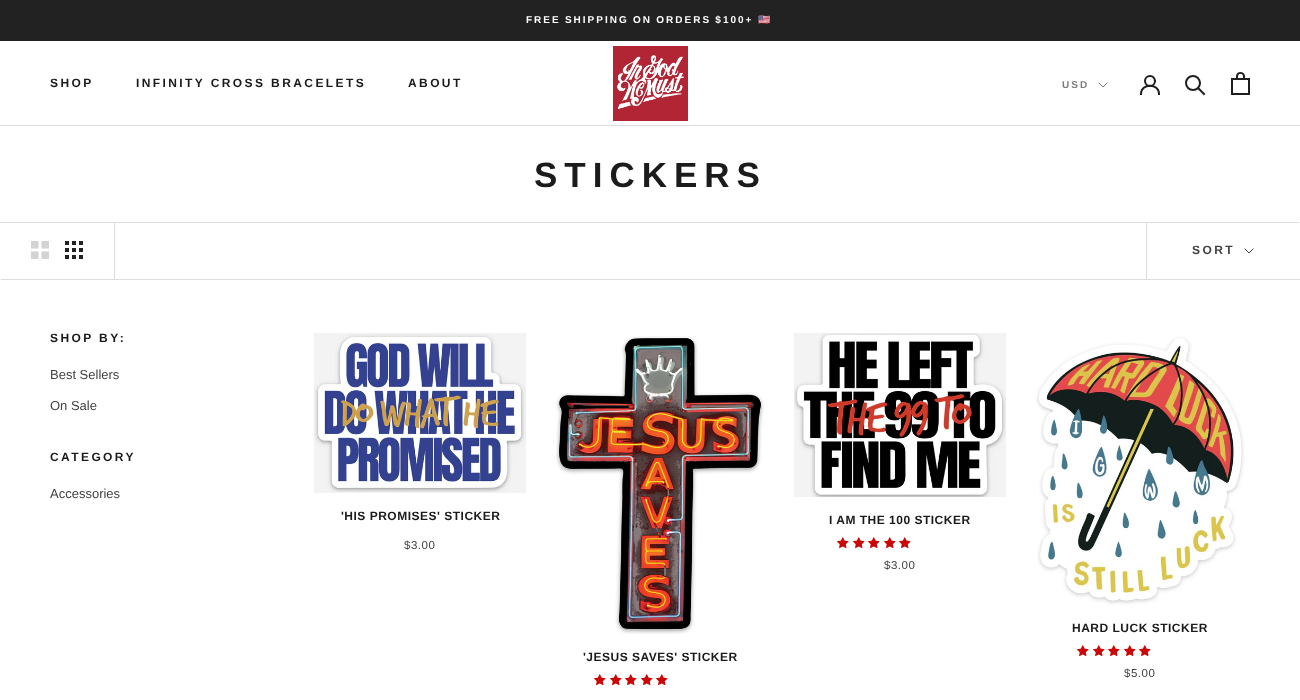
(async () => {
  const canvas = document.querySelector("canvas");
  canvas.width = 1300;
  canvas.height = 700;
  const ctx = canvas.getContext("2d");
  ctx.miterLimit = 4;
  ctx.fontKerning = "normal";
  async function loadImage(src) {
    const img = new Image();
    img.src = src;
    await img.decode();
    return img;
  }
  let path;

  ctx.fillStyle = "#ffffff";
  ctx.fillRect(0, 0, 1300, 700);
  ctx.fillStyle = "#222222";
  ctx.fillRect(0, 0, 1300, 41);
  ctx.fillStyle = "#dddddd";
  ctx.fillRect(0, 125, 1300, 1);
  ctx.drawImage(await loadImage("img/1.png"), 613, 46, 75, 75);
  path = new Path2D("M1107 83L1103 87L1099 83");
  ctx.strokeStyle = "#7e7e7e";
  ctx.lineCap = "square";
  ctx.stroke(path);
  path = new Path2D("M1141 94C1141 83 1159 83 1159 94");
  ctx.strokeStyle = "#1f1f1f";
  ctx.lineWidth = 2;
  ctx.stroke(path);
  ctx.beginPath();
  ctx.arc(1150, 81, 5, 0, Math.PI * 2);
  ctx.stroke();
  path = new Path2D("M1204 94L1198.5 88.5");
  ctx.stroke(path);
  ctx.beginPath();
  ctx.arc(1193, 83, 7, 0, Math.PI * 2);
  ctx.stroke();
  ctx.drawImage(await loadImage("img/2.png"), 1231, 72, 19, 23);
  ctx.fillStyle = "#dedede";
  path = new Path2D("M-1 222V278H0V223H1299V222Z");
  ctx.fill(path);
  path = new Path2D("M1 279V280H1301V224H1300V279Z");
  ctx.fill(path);
  ctx.fillRect(114, 223, 1, 56);
  ctx.drawImage(await loadImage("img/3.png"), 31, 241, 18, 18);
  ctx.drawImage(await loadImage("img/4.png"), 65, 241, 18, 18);
  ctx.fillRect(1146, 223, 1, 56);
  path = new Path2D("M1253 249L1249 253L1245 249");
  ctx.strokeStyle = "#424242";
  ctx.lineWidth = 1;
  ctx.stroke(path);
  ctx.drawImage(await loadImage("img/5.png"), 314, 333, 212, 160);
  ctx.drawImage(await loadImage("img/6.png"), 794, 333, 212, 164);
  ctx.drawImage(await loadImage("img/7.png"), 837, 537, 12, 12);
  ctx.drawImage(await loadImage("img/7.png"), 853, 537, 12, 12);
  ctx.drawImage(await loadImage("img/7.png"), 868, 537, 12, 12);
  ctx.drawImage(await loadImage("img/7.png"), 884, 537, 12, 12);
  ctx.drawImage(await loadImage("img/7.png"), 899, 537, 12, 12);
  ctx.drawImage(await loadImage("img/8.png"), 556, 336, 208, 298);
  ctx.drawImage(await loadImage("img/7.png"), 594, 674, 12, 12);
  ctx.drawImage(await loadImage("img/7.png"), 610, 674, 12, 12);
  ctx.drawImage(await loadImage("img/7.png"), 625, 674, 12, 12);
  ctx.drawImage(await loadImage("img/7.png"), 641, 674, 12, 12);
  ctx.drawImage(await loadImage("img/7.png"), 656, 674, 12, 12);
  ctx.drawImage(await loadImage("img/9.png"), 1035, 336, 210, 269);
  ctx.drawImage(await loadImage("img/7.png"), 1077, 645, 12, 12);
  ctx.drawImage(await loadImage("img/7.png"), 1093, 645, 12, 12);
  ctx.drawImage(await loadImage("img/7.png"), 1108, 645, 12, 12);
  ctx.drawImage(await loadImage("img/7.png"), 1124, 645, 12, 12);
  ctx.drawImage(await loadImage("img/7.png"), 1139, 645, 12, 12);
  ctx.letterSpacing = "2px";
  ctx.wordSpacing = "-0.5px";
  ctx.font = "bold 10px Liberation Sans";
  ctx.fillStyle = "#ffffff";
  ctx.fillText("FREE SHIPPING ON ORDERS $100+", 526, 23);
  ctx.wordSpacing = "0px";
  ctx.font = "bold 10px Noto Color Emoji";
  ctx.fillText("🇺🇸", 758, 23);
  ctx.letterSpacing = "2.4px";
  ctx.font = "bold 12px Liberation Sans";
  ctx.fillStyle = "#1c1b1b";
  for (const [text, x, y] of [
    ["SHOP", 50, 87],
    ["INFINITY CROSS BRACELETS", 136, 87],
    ["ABOUT", 408, 87],
  ]) {
    ctx.fillText(text, x, y);
  }
  ctx.letterSpacing = "2px";
  ctx.font = "bold 10px Liberation Sans";
  ctx.fillStyle = "#7e7e7e";
  ctx.fillText("USD", 1062, 88);
  ctx.letterSpacing = "7px";
  ctx.font = "bold 35px Liberation Sans";
  ctx.fillStyle = "#1c1b1b";
  ctx.fillText("STICKERS", 534, 187);
  ctx.letterSpacing = "2.4px";
  ctx.font = "bold 12px Liberation Sans";
  ctx.fillStyle = "#424242";
  ctx.fillText("SORT", 1192, 254);
  ctx.fillStyle = "#1c1b1b";
  ctx.fillText("SHOP BY:", 50, 342);
  ctx.letterSpacing = "0px";
  ctx.font = "13px Liberation Sans";
  ctx.fillStyle = "#424242";
  ctx.fillText("Best Sellers", 50, 379);
  ctx.fillText("On Sale", 50, 410);
  ctx.letterSpacing = "2.4px";
  ctx.font = "bold 12px Liberation Sans";
  ctx.fillStyle = "#1c1b1b";
  ctx.fillText("CATEGORY", 50, 461);
  ctx.letterSpacing = "0px";
  ctx.font = "13px Liberation Sans";
  ctx.fillStyle = "#424242";
  ctx.fillText("Accessories", 50, 498);
  ctx.letterSpacing = "0.5px";
  ctx.font = "bold 12px Liberation Sans";
  ctx.fillStyle = "#1c1b1b";
  ctx.fillText("'HIS PROMISES' STICKER", 341, 520);
  ctx.font = "11.5px Liberation Sans";
  ctx.fillStyle = "#424242";
  ctx.fillText("$3.00", 404, 549);
  ctx.font = "bold 12px Liberation Sans";
  ctx.fillStyle = "#1c1b1b";
  ctx.fillText("I AM THE 100 STICKER", 829, 524);
  ctx.font = "11.5px Liberation Sans";
  ctx.fillStyle = "#424242";
  ctx.fillText("$3.00", 884, 569);
  ctx.font = "bold 12px Liberation Sans";
  ctx.fillStyle = "#1c1b1b";
  ctx.fillText("'JESUS SAVES' STICKER", 583, 661);
  ctx.fillText("HARD LUCK STICKER", 1072, 632);
  ctx.font = "11.5px Liberation Sans";
  ctx.fillStyle = "#424242";
  ctx.fillText("$5.00", 1124, 677);
})();
